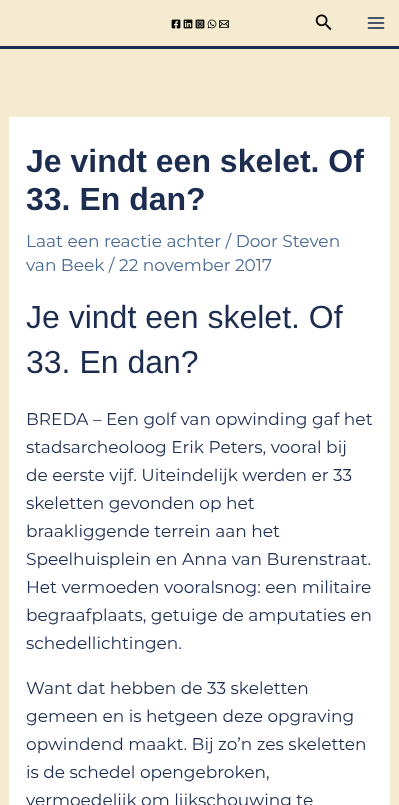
(async () => {
  const canvas = document.querySelector("canvas");
  canvas.width = 399;
  canvas.height = 805;
  const ctx = canvas.getContext("2d");
  ctx.miterLimit = 4;
  ctx.fontKerning = "normal";
  async function loadImage(src) {
    const img = new Image();
    img.src = src;
    await img.decode();
    return img;
  }

  ctx.fillStyle = "#f4ebd0";
  ctx.fillRect(0, 0, 399, 805);
  ctx.fillStyle = "#1d2d50";
  ctx.fillRect(0, 46, 399, 3);
  ctx.drawImage(await loadImage("img/1.png"), 171, 19, 10, 10);
  ctx.drawImage(await loadImage("img/2.png"), 183, 19, 10, 10);
  ctx.drawImage(await loadImage("img/3.png"), 195, 19, 10, 10);
  ctx.drawImage(await loadImage("img/4.png"), 207, 19, 10, 10);
  ctx.drawImage(await loadImage("img/5.png"), 219, 20, 10, 8);
  ctx.drawImage(await loadImage("img/6.png"), 315, 14, 17, 17);
  ctx.drawImage(await loadImage("img/7.png"), 367, 17, 18, 12);
  ctx.fillStyle = "#ffffff";
  ctx.fillRect(9, 117, 381, 688);
  ctx.font = "bold 32px Liberation Sans";
  ctx.fillStyle = "#1d2d50";
  ctx.fillText("Je vindt een skelet. Of", 26, 172);
  ctx.fillText("33. En dan?", 26, 210);
  ctx.font = "100 17px Montserrat";
  ctx.fillStyle = "#486a94";
  ctx.fillText("Laat een reactie achter / Door Steven", 26, 247);
  ctx.fillText("van Beek / 22 november 2017", 26, 271);
  ctx.font = "32px Liberation Sans";
  ctx.fillStyle = "#1d2d50";
  ctx.fillText("Je vindt een skelet. Of", 26, 328);
  ctx.fillText("33. En dan?", 26, 373);
  ctx.font = "100 17px Montserrat";
  for (const [text, x, y] of [
    ["BREDA – Een golf van opwinding gaf het", 26, 425],
    ["stadsarcheoloog Erik Peters, vooral bij", 26, 453],
    ["de eerste vijf. Uiteindelijk werden er 33", 26, 481],
    ["skeletten gevonden op het", 26, 509],
    ["braakliggende terrein aan het", 26, 537],
    ["Speelhuisplein en Anna van Burenstraat.", 26, 565],
    ["Het vermoeden vooralsnog: een militaire", 26, 593],
    ["begraafplaats, getuige de amputaties en", 26, 621],
    ["schedellichtingen.", 26, 649],
    ["Want dat hebben de 33 skeletten", 26, 694],
    ["gemeen en is hetgeen deze opgraving", 26, 722],
    ["opwindend maakt. Bij zo’n zes skeletten", 26, 750],
    ["is de schedel opengebroken,", 26, 778],
    ["vermoedelijk om lijkschouwing te", 26, 806],
  ]) {
    ctx.fillText(text, x, y);
  }
})();
